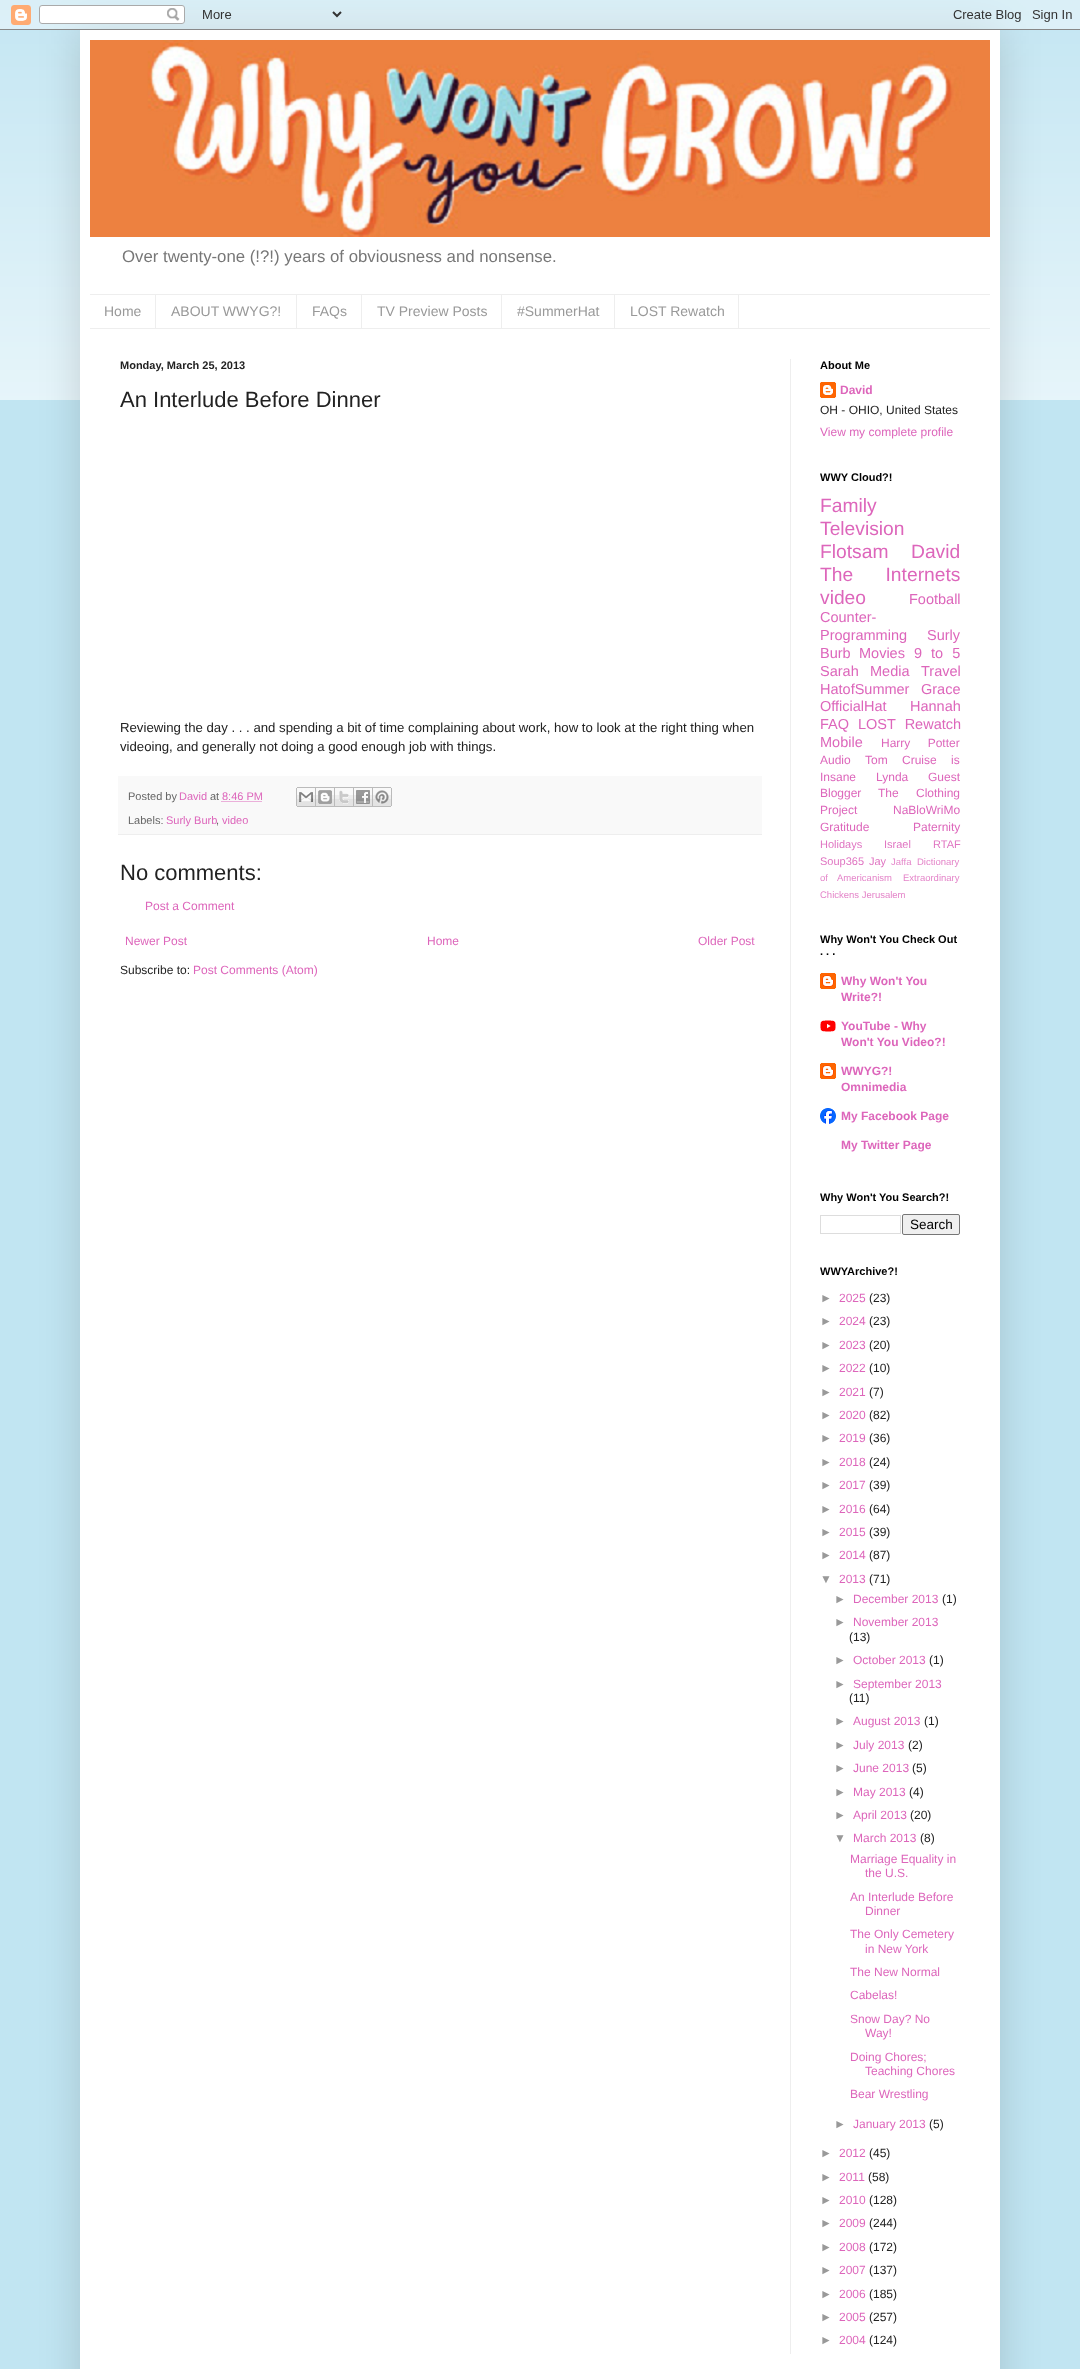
(async () => {
  const canvas = document.querySelector("canvas");
  canvas.width = 1080;
  canvas.height = 2369;
  const ctx = canvas.getContext("2d");
  ctx.miterLimit = 4;
  ctx.fontKerning = "normal";
  async function loadImage(src) {
    const img = new Image();
    img.src = src;
    await img.decode();
    return img;
  }
  let path;

  ctx.fillStyle = "#c1e5f2";
  ctx.fillRect(0, 0, 1080, 2369);
  ctx.drawImage(await loadImage("img/2.png"), 0, 10, 1080, 390);
  ctx.fillStyle = "rgba(0, 0, 0, 0.15)";
  ctx.filter = "blur(20px)";
  ctx.beginPath();
  ctx.rect(80, 30, 920, 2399);
  ctx.fill();
  ctx.filter = "none";
  ctx.drawImage(await loadImage("img/1.png"), 0, 0, 1080, 30);
  ctx.fillStyle = "#ffffff";
  ctx.fillRect(80, 30, 920, 2339);
  ctx.drawImage(await loadImage("img/3.png"), 90, 40, 900, 197);
  for (const [x, y, w, h, color] of [
    [90, 294, 900, 1, "#eeeeee"],
    [90, 328, 900, 1, "#eeeeee"],
    [155, 295, 1, 33, "#eeeeee"],
    [296, 295, 1, 33, "#eeeeee"],
    [361, 295, 1, 33, "#eeeeee"],
    [501, 295, 1, 33, "#eeeeee"],
    [614, 295, 1, 33, "#eeeeee"],
    [738, 295, 1, 33, "#eeeeee"],
    [790, 359, 1, 1995, "#eeeeee"],
    [118, 776, 644, 58, "#f9f9f9"],
    [118, 834, 644, 1, "#eeeeee"],
  ]) {
    ctx.fillStyle = color;
    ctx.fillRect(x, y, w, h);
  }
  path = new Path2D("M221.5 801.5H262");
  ctx.strokeStyle = "#dd66bb";
  ctx.setLineDash([1, 1]);
  ctx.stroke(path);
  ctx.drawImage(await loadImage("img/4.png"), 296, 787, 20, 20);
  ctx.drawImage(await loadImage("img/5.png"), 316, 787, 19, 20);
  ctx.drawImage(await loadImage("img/6.png"), 335, 787, 19, 20);
  ctx.drawImage(await loadImage("img/7.png"), 354, 787, 19, 20);
  ctx.drawImage(await loadImage("img/8.png"), 373, 787, 19, 20);
  ctx.drawImage(await loadImage("img/9.png"), 820, 382, 16, 16);
  ctx.drawImage(await loadImage("img/10.png"), 820, 973, 16, 16);
  ctx.drawImage(await loadImage("img/11.png"), 820, 1020, 16, 12);
  ctx.drawImage(await loadImage("img/10.png"), 820, 1063, 16, 16);
  ctx.drawImage(await loadImage("img/12.png"), 820, 1108, 16, 16);
  ctx.strokeStyle = "#dddddd";
  ctx.setLineDash([]);
  ctx.strokeRect(820.5, 1215.5, 80, 18);
  ctx.fillStyle = "#efefef";
  ctx.beginPath();
  ctx.roundRect(902.5, 1214.5, 57, 20, 1.5);
  ctx.fill();
  ctx.strokeStyle = "#767676";
  ctx.stroke();
  ctx.font = "16.8px Liberation Sans";
  ctx.fillStyle = "#777777";
  ctx.fillText("Over twenty-one (!?!) years of obviousness and nonsense.", 122, 262);
  ctx.font = "14px Liberation Sans";
  ctx.fillStyle = "#999999";
  for (const [text, x, y] of [
    ["Home", 104, 316],
    ["ABOUT WWYG?!", 171, 316],
    ["FAQs", 312, 316],
    ["TV Preview Posts", 377, 316],
    ["#SummerHat", 517, 316],
    ["LOST Rewatch", 630, 316],
  ]) {
    ctx.fillText(text, x, y);
  }
  ctx.font = "bold 11px Liberation Sans";
  ctx.fillStyle = "#222222";
  ctx.fillText("Monday, March 25, 2013", 120, 369);
  ctx.font = "22px Liberation Sans";
  ctx.fillText("An Interlude Before Dinner", 120, 407);
  ctx.font = "13.2px Liberation Sans";
  ctx.fillText("Reviewing the day . . . and spending a bit of time complaining about work, how to look at the right thing when", 120, 732);
  ctx.fillText("videoing, and generally not doing a good enough job with things.", 120, 751);
  ctx.font = "11px Liberation Sans";
  ctx.fillStyle = "#666666";
  ctx.fillText("Posted by", 128, 800);
  ctx.fillStyle = "#dd66bb";
  ctx.fillText("David", 179, 800);
  ctx.fillStyle = "#666666";
  ctx.fillText("at", 210, 800);
  ctx.fillStyle = "#dd66bb";
  ctx.fillText("8:46 PM", 222, 800);
  ctx.fillStyle = "#666666";
  ctx.fillText("Labels:", 128, 824);
  ctx.fillStyle = "#dd66bb";
  ctx.fillText("Surly Burb", 166, 824);
  ctx.fillStyle = "#666666";
  ctx.fillText(",", 216, 824);
  ctx.fillStyle = "#dd66bb";
  ctx.fillText("video", 222, 824);
  ctx.font = "22px Liberation Sans";
  ctx.fillStyle = "#222222";
  ctx.fillText("No comments:", 120, 880);
  ctx.font = "12px Liberation Sans";
  ctx.fillStyle = "#dd66bb";
  for (const [text, x, y] of [
    ["Post a Comment", 145, 910],
    ["Newer Post", 125, 945],
    ["Home", 427, 945],
    ["Older Post", 698, 945],
  ]) {
    ctx.fillText(text, x, y);
  }
  ctx.fillStyle = "#222222";
  ctx.fillText("Subscribe to:", 120, 974);
  ctx.fillStyle = "#dd66bb";
  ctx.fillText("Post Comments (Atom)", 193, 974);
  ctx.font = "bold 11px Liberation Sans";
  ctx.fillStyle = "#000000";
  ctx.fillText("About Me", 820, 369);
  ctx.font = "bold 12px Liberation Sans";
  ctx.fillStyle = "#dd66bb";
  ctx.fillText("David", 840, 394);
  ctx.font = "12px Liberation Sans";
  ctx.fillStyle = "#222222";
  ctx.fillText("OH - OHIO, United States", 820, 414);
  ctx.fillStyle = "#dd66bb";
  ctx.fillText("View my complete profile", 820, 436);
  ctx.font = "bold 11px Liberation Sans";
  ctx.fillStyle = "#000000";
  ctx.fillText("WWY Cloud?!", 820, 481);
  ctx.font = "19.25px Liberation Sans";
  ctx.fillStyle = "#dd66bb";
  for (const [text, x, y] of [
    ["Family", 820, 512],
    ["Television", 820, 535],
    ["Flotsam", 820, 558],
    ["David", 911, 558],
  ]) {
    ctx.fillText(text, x, y);
  }
  ctx.wordSpacing = "27px";
  ctx.fillText("The Internets", 820, 581);
  ctx.wordSpacing = "0px";
  ctx.fillText("video", 820, 604);
  ctx.font = "14.5px Liberation Sans";
  for (const [text, x, y] of [
    ["Football", 909, 604],
    ["Counter-", 820, 622],
    ["Programming", 820, 640],
    ["Surly", 927, 640],
    ["Burb", 820, 658],
    ["Movies", 859, 658],
  ]) {
    ctx.fillText(text, x, y);
  }
  ctx.wordSpacing = "5px";
  ctx.fillText("9 to 5", 914, 658);
  ctx.wordSpacing = "0px";
  for (const [text, x, y] of [
    ["Sarah", 820, 676],
    ["Media", 870, 676],
    ["Travel", 921, 676],
    ["HatofSummer", 820, 694],
    ["Grace", 921, 694],
    ["OfficialHat", 820, 711],
    ["Hannah", 910, 711],
    ["FAQ", 820, 729],
  ]) {
    ctx.fillText(text, x, y);
  }
  ctx.wordSpacing = "5px";
  ctx.fillText("LOST Rewatch", 858, 729);
  ctx.wordSpacing = "0px";
  ctx.fillText("Mobile", 820, 747);
  ctx.wordSpacing = "14px";
  ctx.font = "12px Liberation Sans";
  ctx.fillText("Harry Potter", 881, 747);
  ctx.wordSpacing = "0px";
  ctx.fillText("Audio", 820, 764);
  ctx.wordSpacing = "11px";
  ctx.fillText("Tom Cruise is", 865, 764);
  ctx.wordSpacing = "0px";
  for (const [text, x, y] of [
    ["Insane", 820, 781],
    ["Lynda", 876, 781],
    ["Guest", 928, 781],
    ["Blogger", 820, 797],
  ]) {
    ctx.fillText(text, x, y);
  }
  ctx.wordSpacing = "14px";
  ctx.fillText("The Clothing", 878, 797);
  ctx.wordSpacing = "0px";
  for (const [text, x, y] of [
    ["Project", 820, 814],
    ["NaBloWriMo", 893, 814],
    ["Gratitude", 820, 831],
    ["Paternity", 913, 831],
  ]) {
    ctx.fillText(text, x, y);
  }
  ctx.font = "11px Liberation Sans";
  ctx.fillStyle = "#e075c2";
  for (const [text, x, y] of [
    ["Holidays", 820, 848],
    ["Israel", 884, 848],
    ["RTAF", 933, 848],
    ["Soup365", 820, 865],
    ["Jay", 869, 865],
  ]) {
    ctx.fillText(text, x, y);
  }
  ctx.font = "9.5px Liberation Sans";
  ctx.fillStyle = "#e485c9";
  ctx.fillText("Jaffa", 891, 865);
  ctx.fillText("Dictionary", 917, 865);
  ctx.wordSpacing = "7px";
  ctx.fillText("of Americanism", 820, 881);
  ctx.wordSpacing = "0px";
  ctx.fillText("Extraordinary", 903, 881);
  ctx.fillText("Chickens Jerusalem", 820, 898);
  ctx.font = "bold 11px Liberation Sans";
  ctx.fillStyle = "#000000";
  ctx.fillText("Why Won't You Check Out", 820, 943);
  ctx.fillText(". . .", 820, 955);
  ctx.font = "bold 12px Liberation Sans";
  ctx.fillStyle = "#dd66bb";
  for (const [text, x, y] of [
    ["Why Won't You", 841, 985],
    ["Write?!", 841, 1001],
    ["YouTube - Why", 841, 1030],
    ["Won't You Video?!", 841, 1046],
    ["WWYG?!", 841, 1075],
    ["Omnimedia", 841, 1091],
    ["My Facebook Page", 841, 1120],
    ["My Twitter Page", 841, 1149],
  ]) {
    ctx.fillText(text, x, y);
  }
  ctx.font = "bold 11px Liberation Sans";
  ctx.fillStyle = "#000000";
  ctx.fillText("Why Won't You Search?!", 820, 1201);
  ctx.font = "13.5px Liberation Sans";
  ctx.fillText("Search", 910, 1229);
  ctx.font = "bold 11px Liberation Sans";
  ctx.fillText("WWYArchive?!", 820, 1275);
  ctx.font = "12px Liberation Sans";
  ctx.fillStyle = "#999999";
  ctx.fillText("►", 820, 1302);
  ctx.fillStyle = "#dd66bb";
  ctx.fillText("2025", 839, 1302);
  ctx.fillStyle = "#222222";
  ctx.fillText("(23)", 869, 1302);
  ctx.fillStyle = "#999999";
  ctx.fillText("►", 820, 1325);
  ctx.fillStyle = "#dd66bb";
  ctx.fillText("2024", 839, 1325);
  ctx.fillStyle = "#222222";
  ctx.fillText("(23)", 869, 1325);
  ctx.fillStyle = "#999999";
  ctx.fillText("►", 820, 1349);
  ctx.fillStyle = "#dd66bb";
  ctx.fillText("2023", 839, 1349);
  ctx.fillStyle = "#222222";
  ctx.fillText("(20)", 869, 1349);
  ctx.fillStyle = "#999999";
  ctx.fillText("►", 820, 1372);
  ctx.fillStyle = "#dd66bb";
  ctx.fillText("2022", 839, 1372);
  ctx.fillStyle = "#222222";
  ctx.fillText("(10)", 869, 1372);
  ctx.fillStyle = "#999999";
  ctx.fillText("►", 820, 1396);
  ctx.fillStyle = "#dd66bb";
  ctx.fillText("2021", 839, 1396);
  ctx.fillStyle = "#222222";
  ctx.fillText("(7)", 869, 1396);
  ctx.fillStyle = "#999999";
  ctx.fillText("►", 820, 1419);
  ctx.fillStyle = "#dd66bb";
  ctx.fillText("2020", 839, 1419);
  ctx.fillStyle = "#222222";
  ctx.fillText("(82)", 869, 1419);
  ctx.fillStyle = "#999999";
  ctx.fillText("►", 820, 1442);
  ctx.fillStyle = "#dd66bb";
  ctx.fillText("2019", 839, 1442);
  ctx.fillStyle = "#222222";
  ctx.fillText("(36)", 869, 1442);
  ctx.fillStyle = "#999999";
  ctx.fillText("►", 820, 1466);
  ctx.fillStyle = "#dd66bb";
  ctx.fillText("2018", 839, 1466);
  ctx.fillStyle = "#222222";
  ctx.fillText("(24)", 869, 1466);
  ctx.fillStyle = "#999999";
  ctx.fillText("►", 820, 1489);
  ctx.fillStyle = "#dd66bb";
  ctx.fillText("2017", 839, 1489);
  ctx.fillStyle = "#222222";
  ctx.fillText("(39)", 869, 1489);
  ctx.fillStyle = "#999999";
  ctx.fillText("►", 820, 1513);
  ctx.fillStyle = "#dd66bb";
  ctx.fillText("2016", 839, 1513);
  ctx.fillStyle = "#222222";
  ctx.fillText("(64)", 869, 1513);
  ctx.fillStyle = "#999999";
  ctx.fillText("►", 820, 1536);
  ctx.fillStyle = "#dd66bb";
  ctx.fillText("2015", 839, 1536);
  ctx.fillStyle = "#222222";
  ctx.fillText("(39)", 869, 1536);
  ctx.fillStyle = "#999999";
  ctx.fillText("►", 820, 1559);
  ctx.fillStyle = "#dd66bb";
  ctx.fillText("2014", 839, 1559);
  ctx.fillStyle = "#222222";
  ctx.fillText("(87)", 869, 1559);
  ctx.fillStyle = "#999999";
  ctx.fillText("▼", 820, 1583);
  ctx.fillStyle = "#dd66bb";
  ctx.fillText("2013", 839, 1583);
  ctx.fillStyle = "#222222";
  ctx.fillText("(71)", 869, 1583);
  ctx.fillStyle = "#999999";
  ctx.fillText("►", 834, 1603);
  ctx.fillStyle = "#dd66bb";
  ctx.fillText("December 2013", 853, 1603);
  ctx.fillStyle = "#222222";
  ctx.fillText("(1)", 942, 1603);
  ctx.fillStyle = "#999999";
  ctx.fillText("►", 834, 1626);
  ctx.fillStyle = "#dd66bb";
  ctx.fillText("November 2013", 853, 1626);
  ctx.fillStyle = "#222222";
  ctx.fillText("(13)", 849, 1641);
  ctx.fillStyle = "#999999";
  ctx.fillText("►", 834, 1664);
  ctx.fillStyle = "#dd66bb";
  ctx.fillText("October 2013", 853, 1664);
  ctx.fillStyle = "#222222";
  ctx.fillText("(1)", 929, 1664);
  ctx.fillStyle = "#999999";
  ctx.fillText("►", 834, 1688);
  ctx.fillStyle = "#dd66bb";
  ctx.fillText("September 2013", 853, 1688);
  ctx.fillStyle = "#222222";
  ctx.fillText("(11)", 849, 1702);
  ctx.fillStyle = "#999999";
  ctx.fillText("►", 834, 1725);
  ctx.fillStyle = "#dd66bb";
  ctx.fillText("August 2013", 853, 1725);
  ctx.fillStyle = "#222222";
  ctx.fillText("(1)", 924, 1725);
  ctx.fillStyle = "#999999";
  ctx.fillText("►", 834, 1749);
  ctx.fillStyle = "#dd66bb";
  ctx.fillText("July 2013", 853, 1749);
  ctx.fillStyle = "#222222";
  ctx.fillText("(2)", 908, 1749);
  ctx.fillStyle = "#999999";
  ctx.fillText("►", 834, 1772);
  ctx.fillStyle = "#dd66bb";
  ctx.fillText("June 2013", 853, 1772);
  ctx.fillStyle = "#222222";
  ctx.fillText("(5)", 912, 1772);
  ctx.fillStyle = "#999999";
  ctx.fillText("►", 834, 1796);
  ctx.fillStyle = "#dd66bb";
  ctx.fillText("May 2013", 853, 1796);
  ctx.fillStyle = "#222222";
  ctx.fillText("(4)", 909, 1796);
  ctx.fillStyle = "#999999";
  ctx.fillText("►", 834, 1819);
  ctx.fillStyle = "#dd66bb";
  ctx.fillText("April 2013", 853, 1819);
  ctx.fillStyle = "#222222";
  ctx.fillText("(20)", 910, 1819);
  ctx.fillStyle = "#999999";
  ctx.fillText("▼", 834, 1842);
  ctx.fillStyle = "#dd66bb";
  ctx.fillText("March 2013", 853, 1842);
  ctx.fillStyle = "#222222";
  ctx.fillText("(8)", 920, 1842);
  ctx.fillStyle = "#dd66bb";
  for (const [text, x, y] of [
    ["Marriage Equality in", 850, 1863],
    ["the U.S.", 865, 1877],
    ["An Interlude Before", 850, 1901],
    ["Dinner", 865, 1915],
    ["The Only Cemetery", 850, 1938],
    ["in New York", 865, 1953],
    ["The New Normal", 850, 1976],
    ["Cabelas!", 850, 1999],
    ["Snow Day? No", 850, 2023],
    ["Way!", 865, 2037],
    ["Doing Chores;", 850, 2061],
    ["Teaching Chores", 865, 2075],
    ["Bear Wrestling", 850, 2098],
  ]) {
    ctx.fillText(text, x, y);
  }
  ctx.fillStyle = "#999999";
  ctx.fillText("►", 834, 2128);
  ctx.fillStyle = "#dd66bb";
  ctx.fillText("January 2013", 853, 2128);
  ctx.fillStyle = "#222222";
  ctx.fillText("(5)", 929, 2128);
  ctx.fillStyle = "#999999";
  ctx.fillText("►", 820, 2157);
  ctx.fillStyle = "#dd66bb";
  ctx.fillText("2012", 839, 2157);
  ctx.fillStyle = "#222222";
  ctx.fillText("(45)", 869, 2157);
  ctx.fillStyle = "#999999";
  ctx.fillText("►", 820, 2181);
  ctx.fillStyle = "#dd66bb";
  ctx.fillText("2011", 839, 2181);
  ctx.fillStyle = "#222222";
  ctx.fillText("(58)", 868, 2181);
  ctx.fillStyle = "#999999";
  ctx.fillText("►", 820, 2204);
  ctx.fillStyle = "#dd66bb";
  ctx.fillText("2010", 839, 2204);
  ctx.fillStyle = "#222222";
  ctx.fillText("(128)", 869, 2204);
  ctx.fillStyle = "#999999";
  ctx.fillText("►", 820, 2227);
  ctx.fillStyle = "#dd66bb";
  ctx.fillText("2009", 839, 2227);
  ctx.fillStyle = "#222222";
  ctx.fillText("(244)", 869, 2227);
  ctx.fillStyle = "#999999";
  ctx.fillText("►", 820, 2251);
  ctx.fillStyle = "#dd66bb";
  ctx.fillText("2008", 839, 2251);
  ctx.fillStyle = "#222222";
  ctx.fillText("(172)", 869, 2251);
  ctx.fillStyle = "#999999";
  ctx.fillText("►", 820, 2274);
  ctx.fillStyle = "#dd66bb";
  ctx.fillText("2007", 839, 2274);
  ctx.fillStyle = "#222222";
  ctx.fillText("(137)", 869, 2274);
  ctx.fillStyle = "#999999";
  ctx.fillText("►", 820, 2298);
  ctx.fillStyle = "#dd66bb";
  ctx.fillText("2006", 839, 2298);
  ctx.fillStyle = "#222222";
  ctx.fillText("(185)", 869, 2298);
  ctx.fillStyle = "#999999";
  ctx.fillText("►", 820, 2321);
  ctx.fillStyle = "#dd66bb";
  ctx.fillText("2005", 839, 2321);
  ctx.fillStyle = "#222222";
  ctx.fillText("(257)", 869, 2321);
  ctx.fillStyle = "#999999";
  ctx.fillText("►", 820, 2344);
  ctx.fillStyle = "#dd66bb";
  ctx.fillText("2004", 839, 2344);
  ctx.fillStyle = "#222222";
  ctx.fillText("(124)", 869, 2344);
})();
